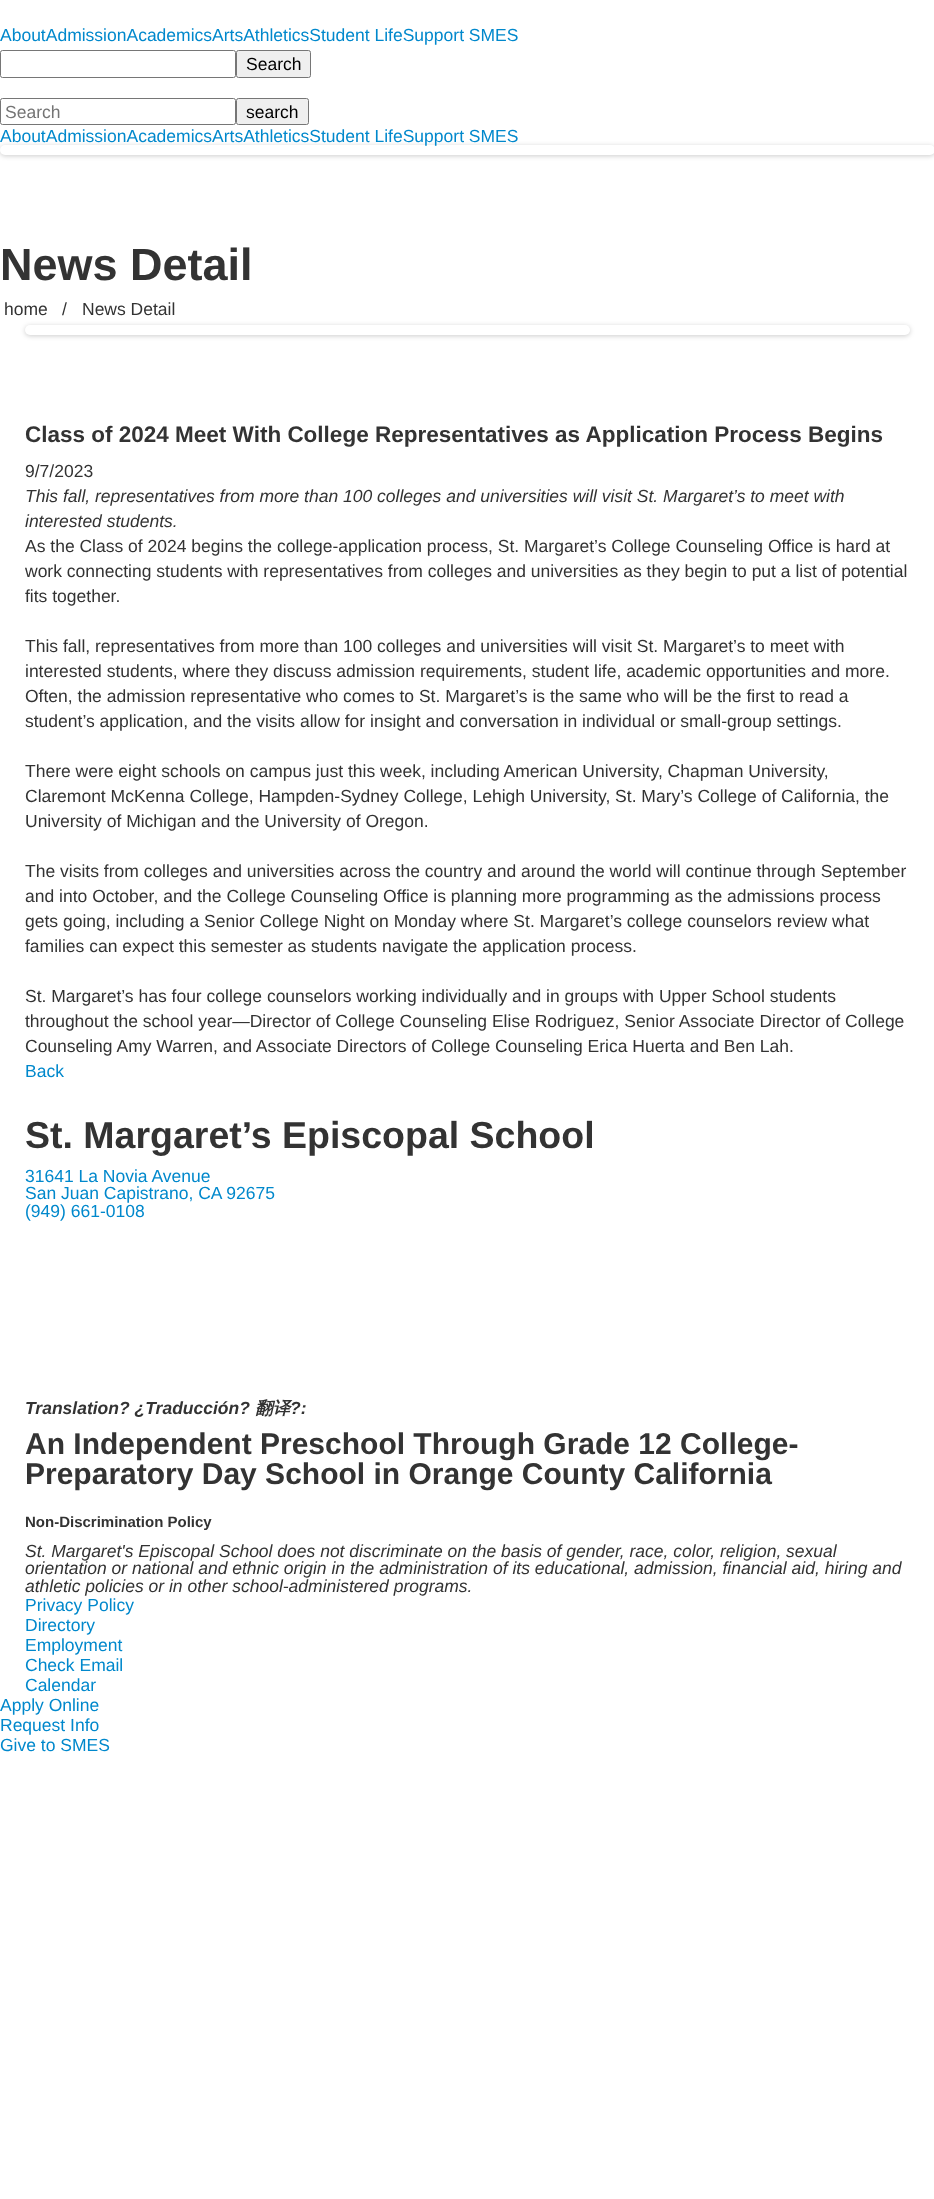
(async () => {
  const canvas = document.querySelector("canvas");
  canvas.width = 934;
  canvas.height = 2199;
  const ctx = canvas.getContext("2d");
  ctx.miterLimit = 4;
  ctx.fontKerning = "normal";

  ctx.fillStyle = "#ffffff";
  ctx.fillRect(0, 0, 934, 2199);
  ctx.beginPath();
  ctx.roundRect(0.5, 50.5, 235, 27, 2);
  ctx.strokeStyle = "#767676";
  ctx.stroke();
  ctx.fillStyle = "#efefef";
  ctx.beginPath();
  ctx.roundRect(236.5, 50.5, 74, 27, 2);
  ctx.fill();
  ctx.stroke();
  ctx.beginPath();
  ctx.roundRect(0.5, 98.5, 235, 26, 2);
  ctx.stroke();
  ctx.beginPath();
  ctx.roundRect(236.5, 98.5, 72, 26, 2);
  ctx.fill();
  ctx.stroke();
  ctx.fillStyle = "rgba(0, 0, 0, 0.2)";
  ctx.filter = "blur(2.5px)";
  ctx.beginPath();
  ctx.roundRect(0, 146, 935, 10, 5);
  ctx.fill();
  ctx.filter = "none";
  ctx.fillStyle = "#ffffff";
  ctx.beginPath();
  ctx.roundRect(0, 145, 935, 10, 5);
  ctx.fill();
  ctx.fillStyle = "rgba(0, 0, 0, 0.2)";
  ctx.filter = "blur(2.5px)";
  ctx.beginPath();
  ctx.roundRect(25, 326, 885, 10, 5);
  ctx.fill();
  ctx.filter = "none";
  ctx.fillStyle = "#ffffff";
  ctx.beginPath();
  ctx.roundRect(25, 325, 885, 10, 5);
  ctx.fill();
  ctx.font = "17.5px Liberation Sans";
  ctx.fillStyle = "#0088cc";
  ctx.fillText("AboutAdmissionAcademicsArtsAthleticsStudent LifeSupport SMES", 0, 41);
  ctx.fillStyle = "#000000";
  ctx.fillText("Search", 246, 70);
  ctx.fillStyle = "#757575";
  ctx.fillText("Search", 5, 118);
  ctx.fillStyle = "#000000";
  ctx.fillText("search", 246, 118);
  ctx.fillStyle = "#0088cc";
  ctx.fillText("AboutAdmissionAcademicsArtsAthleticsStudent LifeSupport SMES", 0, 142);
  ctx.font = "bold 45px Liberation Sans";
  ctx.fillStyle = "#333333";
  ctx.fillText("News Detail", 0, 280);
  ctx.font = "17.5px Liberation Sans";
  for (const [text, x, y] of [
    ["home", 4, 315],
    ["/", 62, 315],
    ["News Detail", 82, 315],
  ]) {
    ctx.fillText(text, x, y);
  }
  ctx.font = "bold 22.5px Liberation Sans";
  ctx.fillText("Class of 2024 Meet With College Representatives as Application Process Begins", 25, 442);
  ctx.font = "17.5px Liberation Sans";
  ctx.fillText("9/7/2023", 25, 477);
  ctx.font = "italic 17.5px Liberation Sans";
  ctx.fillText("This fall, representatives from more than 100 colleges and universities will visit St. Margaret’s to meet with", 25, 502);
  ctx.fillText("interested students.", 25, 527);
  ctx.font = "17.5px Liberation Sans";
  for (const [text, x, y] of [
    ["As the Class of 2024 begins the college-application process, St. Margaret’s College Counseling Office is hard at", 25, 552],
    ["work connecting students with representatives from colleges and universities as they begin to put a list of potential", 25, 577],
    ["fits together.", 25, 602],
    ["This fall, representatives from more than 100 colleges and universities will visit St. Margaret’s to meet with", 25, 652],
    ["interested students, where they discuss admission requirements, student life, academic opportunities and more.", 25, 677],
    ["Often, the admission representative who comes to St. Margaret’s is the same who will be the first to read a", 25, 702],
    ["student’s application, and the visits allow for insight and conversation in individual or small-group settings.", 25, 727],
    ["There were eight schools on campus just this week, including American University, Chapman University,", 25, 777],
    ["Claremont McKenna College, Hampden-Sydney College, Lehigh University, St. Mary’s College of California, the", 25, 802],
    ["University of Michigan and the University of Oregon.", 25, 827],
    ["The visits from colleges and universities across the country and around the world will continue through September", 25, 877],
    ["and into October, and the College Counseling Office is planning more programming as the admissions process", 25, 902],
    ["gets going, including a Senior College Night on Monday where St. Margaret’s college counselors review what", 25, 927],
    ["families can expect this semester as students navigate the application process.", 25, 952],
    ["St. Margaret’s has four college counselors working individually and in groups with Upper School students", 25, 1002],
    ["throughout the school year—Director of College Counseling Elise Rodriguez, Senior Associate Director of College", 25, 1027],
    ["Counseling Amy Warren, and Associate Directors of College Counseling Erica Huerta and Ben Lah.", 25, 1052],
  ]) {
    ctx.fillText(text, x, y);
  }
  ctx.fillStyle = "#0088cc";
  ctx.fillText("Back", 25, 1077);
  ctx.font = "bold 37.5px Liberation Sans";
  ctx.fillStyle = "#333333";
  ctx.fillText("St. Margaret’s Episcopal School", 25, 1148);
  ctx.font = "17.5px Liberation Sans";
  ctx.fillStyle = "#0088cc";
  for (const [text, x, y] of [
    ["31641 La Novia Avenue", 25, 1182],
    ["San Juan Capistrano, CA 92675", 25, 1199],
    ["(949) 661-0108", 25, 1217],
  ]) {
    ctx.fillText(text, x, y);
  }
  ctx.font = "italic bold 17.5px Liberation Sans";
  ctx.fillStyle = "#333333";
  ctx.fillText("Translation? ¿Traducción?", 25, 1414);
  ctx.font = "italic bold 17.5px WenQuanYi Zen Hei";
  ctx.fillText("翻译", 255, 1414);
  ctx.font = "italic bold 17.5px Liberation Sans";
  ctx.fillText("?:", 290, 1414);
  ctx.font = "bold 30px Liberation Sans";
  ctx.fillText("An Independent Preschool Through Grade 12 College-", 25, 1454);
  ctx.fillText("Preparatory Day School in Orange County California", 25, 1484);
  ctx.font = "bold 15px Liberation Sans";
  ctx.fillText("Non-Discrimination Policy", 25, 1527);
  ctx.font = "italic 17.5px Liberation Sans";
  for (const [text, x, y] of [
    ["St. Margaret's Episcopal School does not discriminate on the basis of gender, race, color, religion, sexual", 25, 1557],
    ["orientation or national and ethnic origin in the administration of its educational, admission, financial aid, hiring and", 25, 1574],
    ["athletic policies or in other school-administered programs.", 25, 1592],
  ]) {
    ctx.fillText(text, x, y);
  }
  ctx.font = "17.5px Liberation Sans";
  ctx.fillStyle = "#0088cc";
  for (const [text, x, y] of [
    ["Privacy Policy", 25, 1611],
    ["Directory", 25, 1631],
    ["Employment", 25, 1651],
    ["Check Email", 25, 1671],
    ["Calendar", 25, 1691],
    ["Apply Online", 0, 1711],
    ["Request Info", 0, 1731],
    ["Give to SMES", 0, 1751],
  ]) {
    ctx.fillText(text, x, y);
  }
})();
